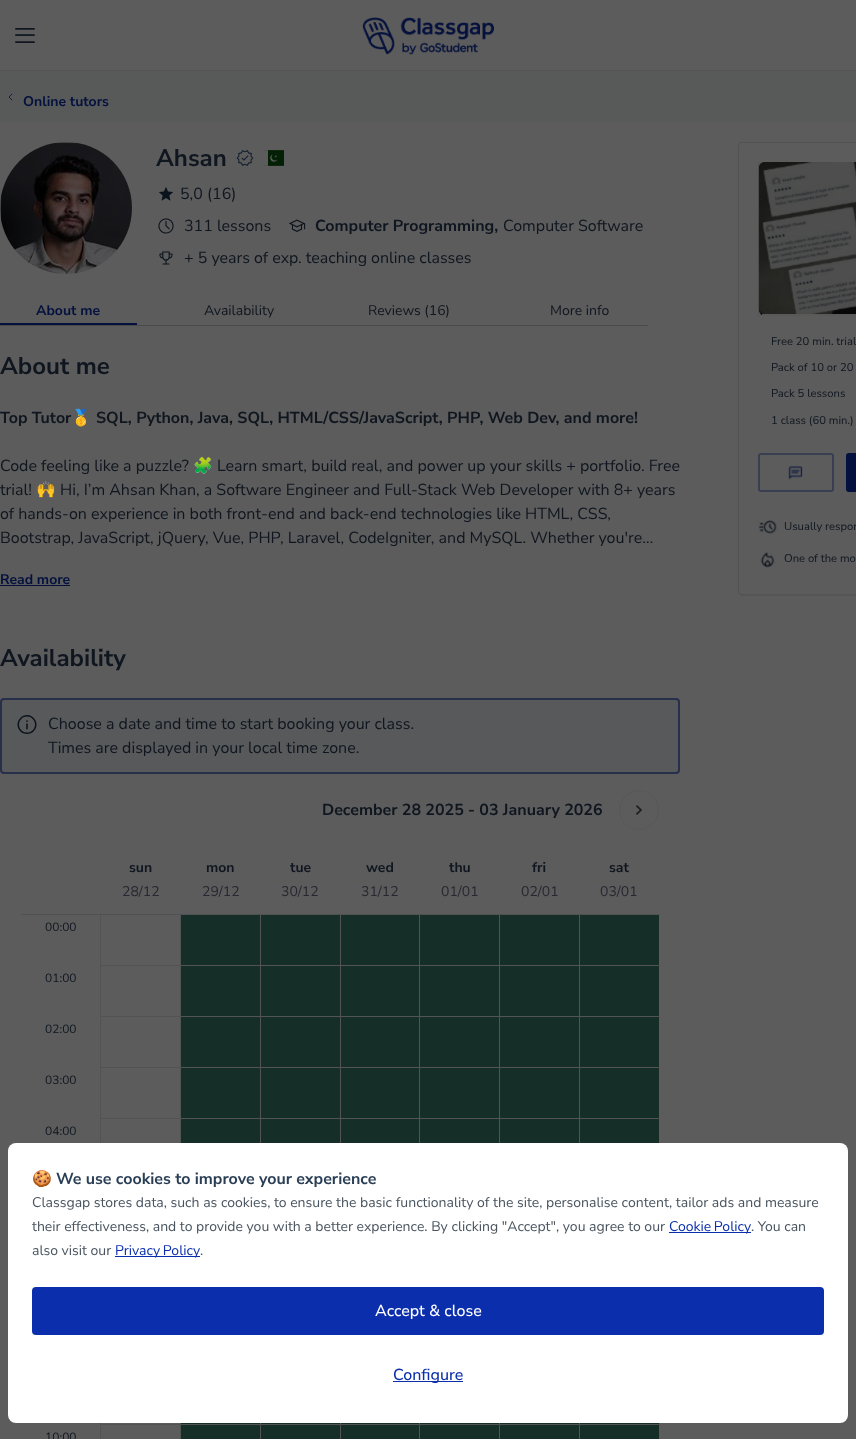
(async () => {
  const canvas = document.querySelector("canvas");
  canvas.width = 856;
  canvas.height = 1439;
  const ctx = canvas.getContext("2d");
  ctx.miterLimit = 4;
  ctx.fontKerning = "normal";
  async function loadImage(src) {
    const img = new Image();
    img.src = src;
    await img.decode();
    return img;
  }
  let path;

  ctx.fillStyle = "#585959";
  ctx.fillRect(0, 0, 856, 1439);
  ctx.fillStyle = "#5c5c5c";
  ctx.fillRect(0, 0, 856, 70);
  ctx.fillStyle = "#555555";
  ctx.fillRect(0, 70, 856, 1);
  ctx.drawImage(await loadImage("img/1.png"), 15, 28, 20, 15);
  ctx.drawImage(await loadImage("img/2.png"), 362, 17, 132, 38);
  path = new Path2D("M12 100L9 97L12 94");
  ctx.strokeStyle = "#04113e";
  ctx.lineWidth = 0.8;
  ctx.lineCap = "round";
  ctx.lineJoin = "round";
  ctx.stroke(path);
  ctx.fillStyle = "#5c5c5c";
  ctx.fillRect(0, 122, 856, 1317);
  ctx.drawImage(await loadImage("img/3.png"), 0, 142, 132, 132);
  ctx.drawImage(await loadImage("img/4.png"), 236, 150, 18, 16);
  ctx.drawImage(await loadImage("img/5.png"), 263, 150, 21, 16);
  ctx.drawImage(await loadImage("img/6.png"), 158, 187, 16, 14);
  ctx.drawImage(await loadImage("img/7.png"), 158, 218, 16, 16);
  ctx.drawImage(await loadImage("img/8.png"), 289, 219, 17, 13);
  ctx.drawImage(await loadImage("img/9.png"), 159, 251, 14, 14);
  for (const [x, y, w, h, color] of [
    [0, 325, 648, 1, "#494a4b"],
    [0, 323, 137, 2, "#04113e"],
    [0, 585, 70, 1, "#04113e"],
  ]) {
    ctx.fillStyle = color;
    ctx.fillRect(x, y, w, h);
  }
  ctx.fillStyle = "#575757";
  path = new Path2D("M738 591V592C738 594 740 596 742 596H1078C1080 596 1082 594 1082 592V591C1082 593 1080 595 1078 595H742C740 595 738 593 738 591Z");
  ctx.fill(path);
  ctx.beginPath();
  ctx.roundRect(738.4, 142.4, 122.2, 452.2, 3.6);
  ctx.strokeStyle = "#515151";
  ctx.lineJoin = "miter";
  ctx.stroke();
  ctx.fillStyle = "#545454";
  ctx.fillRect(758, 162, 1, 154);
  ctx.fillStyle = "#101010";
  ctx.beginPath();
  ctx.roundRect(759, 162, 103, 154, 6);
  ctx.fill();
  ctx.fillStyle = "#595958";
  ctx.fillRect(762, 314, 94, 2);
  ctx.drawImage(await loadImage("img/10.png"), 758, 162, 98, 152);
  ctx.beginPath();
  ctx.roundRect(759, 454, 74, 37, 2);
  ctx.strokeStyle = "#393e50";
  ctx.lineWidth = 2;
  ctx.stroke();
  ctx.drawImage(await loadImage("img/11.png"), 788, 466, 15, 14);
  ctx.fillStyle = "#04113e";
  ctx.beginPath();
  ctx.roundRect(846, 453, 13, 39, 3);
  ctx.fill();
  ctx.drawImage(await loadImage("img/12.png"), 758, 520, 19, 14);
  ctx.drawImage(await loadImage("img/13.png"), 760, 552, 15, 16);
  ctx.fillStyle = "#58595a";
  ctx.beginPath();
  ctx.roundRect(1, 699, 678, 74, 3);
  ctx.fill();
  ctx.strokeStyle = "#272f4a";
  ctx.stroke();
  ctx.drawImage(await loadImage("img/14.png"), 17, 715, 20, 19);
  ctx.beginPath();
  ctx.arc(639, 810, 19.5, 0, Math.PI * 2);
  ctx.strokeStyle = "#575858";
  ctx.lineWidth = 1;
  ctx.stroke();
  ctx.drawImage(await loadImage("img/15.png"), 635, 805, 7, 10);
  for (const [x, y, w, h, color] of [
    [579, 1118, 1, 25, "#535353"],
    [579, 1118, 81, 1, "#535353"],
    [579, 1067, 1, 52, "#535353"],
    [579, 1067, 81, 1, "#535353"],
    [579, 1016, 1, 52, "#535353"],
    [579, 1016, 81, 1, "#535353"],
    [579, 965, 1, 52, "#535353"],
    [579, 965, 81, 1, "#535353"],
    [579, 914, 1, 52, "#535353"],
    [499, 1118, 1, 25, "#535353"],
    [499, 1118, 81, 1, "#535353"],
    [499, 1067, 1, 52, "#535353"],
    [499, 1067, 81, 1, "#535353"],
    [499, 1016, 1, 52, "#535353"],
    [499, 1016, 81, 1, "#535353"],
    [499, 965, 1, 52, "#535353"],
    [499, 965, 81, 1, "#535353"],
    [499, 914, 1, 52, "#535353"],
    [419, 1118, 1, 25, "#535353"],
    [419, 1118, 81, 1, "#535353"],
    [419, 1067, 1, 52, "#535353"],
    [419, 1067, 81, 1, "#535353"],
    [419, 1016, 1, 52, "#535353"],
    [419, 1016, 81, 1, "#535353"],
    [419, 965, 1, 52, "#535353"],
    [419, 965, 81, 1, "#535353"],
    [419, 914, 1, 52, "#535353"],
    [340, 1118, 1, 25, "#535353"],
    [340, 1118, 80, 1, "#535353"],
    [340, 1067, 1, 52, "#535353"],
    [340, 1067, 80, 1, "#535353"],
    [340, 1016, 1, 52, "#535353"],
    [340, 1016, 80, 1, "#535353"],
    [340, 965, 1, 52, "#535353"],
    [340, 965, 80, 1, "#535353"],
    [340, 914, 1, 52, "#535353"],
    [260, 1118, 1, 25, "#535353"],
    [260, 1118, 81, 1, "#535353"],
    [260, 1067, 1, 52, "#535353"],
    [260, 1067, 81, 1, "#535353"],
    [260, 1016, 1, 52, "#535353"],
    [260, 1016, 81, 1, "#535353"],
    [260, 965, 1, 52, "#535353"],
    [260, 965, 81, 1, "#535353"],
    [260, 914, 1, 52, "#535353"],
    [180, 1118, 1, 25, "#535353"],
    [180, 1118, 81, 1, "#535353"],
    [180, 1067, 1, 52, "#535353"],
    [180, 1067, 81, 1, "#535353"],
    [180, 1016, 1, 52, "#535353"],
    [180, 1016, 81, 1, "#535353"],
    [180, 965, 1, 52, "#535353"],
    [180, 965, 81, 1, "#535353"],
    [180, 914, 1, 52, "#535353"],
    [100, 1118, 1, 25, "#535353"],
    [100, 1118, 81, 1, "#535353"],
    [100, 1067, 1, 52, "#535353"],
    [100, 1067, 81, 1, "#535353"],
    [100, 1016, 1, 52, "#535353"],
    [100, 1016, 81, 1, "#535353"],
    [100, 965, 1, 52, "#535353"],
    [100, 965, 81, 1, "#535353"],
    [100, 914, 1, 52, "#535353"],
    [21, 914, 639, 1, "#515151"],
    [181, 915, 79, 50, "#152f28"],
    [261, 915, 79, 50, "#152f28"],
    [341, 915, 78, 50, "#152f28"],
    [420, 915, 79, 50, "#152f28"],
    [500, 915, 79, 50, "#152f28"],
    [580, 915, 79, 50, "#152f28"],
    [181, 966, 79, 50, "#152f28"],
    [261, 966, 79, 50, "#152f28"],
    [341, 966, 78, 50, "#152f28"],
    [420, 966, 79, 50, "#152f28"],
    [500, 966, 79, 50, "#152f28"],
    [580, 966, 79, 50, "#152f28"],
    [181, 1017, 79, 50, "#152f28"],
    [261, 1017, 79, 50, "#152f28"],
    [341, 1017, 78, 50, "#152f28"],
    [420, 1017, 79, 50, "#152f28"],
    [500, 1017, 79, 50, "#152f28"],
    [580, 1017, 79, 50, "#152f28"],
    [181, 1068, 79, 50, "#152f28"],
    [261, 1068, 79, 50, "#152f28"],
    [341, 1068, 78, 50, "#152f28"],
    [420, 1068, 79, 50, "#152f28"],
    [500, 1068, 79, 50, "#152f28"],
    [580, 1068, 79, 50, "#152f28"],
    [181, 1119, 79, 24, "#152f28"],
    [261, 1119, 79, 24, "#152f28"],
    [341, 1119, 78, 24, "#152f28"],
    [420, 1119, 79, 24, "#152f28"],
    [500, 1119, 79, 24, "#152f28"],
    [580, 1119, 79, 24, "#152f28"],
    [579, 1424, 1, 15, "#535353"],
    [579, 1424, 81, 1, "#535353"],
    [579, 1423, 1, 2, "#535353"],
    [499, 1424, 1, 15, "#535353"],
    [499, 1424, 81, 1, "#535353"],
    [499, 1423, 1, 2, "#535353"],
    [419, 1424, 1, 15, "#535353"],
    [419, 1424, 81, 1, "#535353"],
    [419, 1423, 1, 2, "#535353"],
    [340, 1424, 1, 15, "#535353"],
    [340, 1424, 80, 1, "#535353"],
    [340, 1423, 1, 2, "#535353"],
    [260, 1424, 1, 15, "#535353"],
    [260, 1424, 81, 1, "#535353"],
    [260, 1423, 1, 2, "#535353"],
    [180, 1424, 1, 15, "#535353"],
    [180, 1424, 81, 1, "#535353"],
    [180, 1423, 1, 2, "#535353"],
    [100, 1424, 1, 15, "#535353"],
    [100, 1424, 81, 1, "#535353"],
    [100, 1423, 1, 2, "#535353"],
    [181, 1423, 79, 1, "#152f28"],
    [261, 1423, 79, 1, "#152f28"],
    [341, 1423, 78, 1, "#152f28"],
    [420, 1423, 79, 1, "#152f28"],
    [500, 1423, 79, 1, "#152f28"],
    [580, 1423, 79, 1, "#152f28"],
    [181, 1425, 79, 14, "#152f28"],
    [261, 1425, 79, 14, "#152f28"],
    [341, 1425, 78, 14, "#152f28"],
    [420, 1425, 79, 14, "#152f28"],
    [500, 1425, 79, 14, "#152f28"],
    [580, 1425, 79, 14, "#152f28"],
  ]) {
    ctx.fillStyle = color;
    ctx.fillRect(x, y, w, h);
  }
  ctx.fillStyle = "#ffffff";
  ctx.beginPath();
  ctx.roundRect(8, 1143, 840, 280, 8);
  ctx.fill();
  ctx.fillStyle = "#0b2fac";
  ctx.fillRect(669, 1232, 82, 1);
  ctx.fillRect(115, 1256, 85, 1);
  ctx.beginPath();
  ctx.roundRect(32, 1287, 792, 48, 4);
  ctx.fill();
  ctx.fillRect(393, 1381, 70, 1);
  ctx.font = "bold 14px Nunito Sans";
  ctx.fillStyle = "#04113e";
  ctx.fillText("Online tutors", 23, 106);
  ctx.font = "bold 24px Nunito Sans";
  ctx.fillStyle = "#0f161f";
  ctx.fillText("Ahsan", 156, 166);
  ctx.font = "16px Nunito Sans";
  ctx.fillText("5,0 (16)", 180, 199);
  ctx.fillText("311 lessons", 184, 231);
  ctx.font = "bold 16px Nunito Sans";
  ctx.fillText("Computer Programming,", 315, 231);
  ctx.font = "16px Nunito Sans";
  ctx.fillText("Computer Software", 503, 231);
  ctx.fillText("+ 5 years of exp. teaching online classes", 184, 263);
  ctx.font = "bold 14px Nunito Sans";
  ctx.fillStyle = "#04113e";
  ctx.fillText("About me", 36, 315);
  ctx.font = "14px Nunito Sans";
  ctx.fillStyle = "#0f161f";
  for (const [text, x, y] of [
    ["Availability", 204, 315],
    ["Reviews (16)", 368, 315],
    ["More info", 550, 315],
  ]) {
    ctx.fillText(text, x, y);
  }
  ctx.font = "bold 24px Nunito Sans";
  ctx.fillText("About me", 0, 374);
  ctx.font = "bold 16px Nunito Sans";
  ctx.fillText("Top Tutor", 0, 423);
  ctx.font = "bold 16px Noto Color Emoji";
  ctx.fillText("🥇", 71, 423);
  ctx.font = "bold 16px Nunito Sans";
  ctx.fillText("SQL, Python, Java, SQL, HTML/CSS/JavaScript, PHP, Web Dev, and more!", 96, 423);
  ctx.font = "16px Nunito Sans";
  ctx.fillText("Code feeling like a puzzle?", 0, 471);
  ctx.font = "16px Noto Color Emoji";
  ctx.fillText("🧩", 193, 471);
  ctx.font = "16px Nunito Sans";
  ctx.fillText("Learn smart, build real, and power up your skills + portfolio. Free", 217, 471);
  ctx.fillText("trial!", 0, 495);
  ctx.font = "16px Noto Color Emoji";
  ctx.fillText("🙌", 36, 495);
  ctx.font = "16px Nunito Sans";
  for (const [text, x, y] of [
    ["Hi, I’m Ahsan Khan, a Software Engineer and Full-Stack Web Developer with 8+ years", 60, 495],
    ["of hands-on experience in both front-end and back-end technologies like HTML, CSS,", 0, 519],
    ["Bootstrap, JavaScript, jQuery, Vue, PHP, Laravel, CodeIgniter, and MySQL. Whether you're…", 0, 543],
  ]) {
    ctx.fillText(text, x, y);
  }
  ctx.font = "bold 14px Nunito Sans";
  ctx.fillStyle = "#04113e";
  ctx.fillText("Read more", 0, 584);
  ctx.font = "11.25px Nunito Sans";
  ctx.fillStyle = "#0f161f";
  for (const [text, x, y] of [
    ["Free 20 min. trial", 771, 345],
    ["Pack of 10 or 20", 771, 371],
    ["Pack 5 lessons", 771, 397],
    ["1 class (60 min.)", 771, 424],
    ["Usually respon", 784, 530],
    ["One of the mo", 784, 562],
  ]) {
    ctx.fillText(text, x, y);
  }
  ctx.font = "bold 24px Nunito Sans";
  ctx.fillText("Availability", 0, 666);
  ctx.font = "16px Nunito Sans";
  ctx.fillText("Choose a date and time to start booking your class.", 48, 729);
  ctx.fillText("Times are displayed in your local time zone.", 48, 753);
  ctx.font = "bold 16px Nunito Sans";
  ctx.fillText("December 28 2025 - 03 January 2026", 322, 815);
  ctx.font = "bold 14px Nunito Sans";
  ctx.fillText("sun", 129, 872);
  ctx.font = "14px Nunito Sans";
  ctx.fillStyle = "#272731";
  ctx.fillText("28/12", 122, 896);
  ctx.font = "bold 14px Nunito Sans";
  ctx.fillStyle = "#0f161f";
  ctx.fillText("mon", 206, 872);
  ctx.font = "14px Nunito Sans";
  ctx.fillStyle = "#272731";
  ctx.fillText("29/12", 202, 896);
  ctx.font = "bold 14px Nunito Sans";
  ctx.fillStyle = "#0f161f";
  ctx.fillText("tue", 290, 872);
  ctx.font = "14px Nunito Sans";
  ctx.fillStyle = "#272731";
  ctx.fillText("30/12", 281, 896);
  ctx.font = "bold 14px Nunito Sans";
  ctx.fillStyle = "#0f161f";
  ctx.fillText("wed", 366, 872);
  ctx.font = "14px Nunito Sans";
  ctx.fillStyle = "#272731";
  ctx.fillText("31/12", 361, 896);
  ctx.font = "bold 14px Nunito Sans";
  ctx.fillStyle = "#0f161f";
  ctx.fillText("thu", 449, 872);
  ctx.font = "14px Nunito Sans";
  ctx.fillStyle = "#272731";
  ctx.fillText("01/01", 441, 896);
  ctx.font = "bold 14px Nunito Sans";
  ctx.fillStyle = "#0f161f";
  ctx.fillText("fri", 532, 872);
  ctx.font = "14px Nunito Sans";
  ctx.fillStyle = "#272731";
  ctx.fillText("02/01", 521, 896);
  ctx.font = "bold 14px Nunito Sans";
  ctx.fillStyle = "#0f161f";
  ctx.fillText("sat", 609, 872);
  ctx.font = "14px Nunito Sans";
  ctx.fillStyle = "#272731";
  ctx.fillText("03/01", 600, 896);
  ctx.font = "12px Nunito Sans";
  ctx.fillStyle = "#0f161f";
  for (const [text, x, y] of [
    ["00:00", 45, 931],
    ["01:00", 45, 982],
    ["02:00", 45, 1033],
    ["03:00", 45, 1084],
    ["04:00", 45, 1135],
    ["10:00", 45, 1441],
  ]) {
    ctx.fillText(text, x, y);
  }
  ctx.font = "bold 16px Noto Color Emoji";
  ctx.fillStyle = "#2a3f55";
  ctx.fillText("🍪", 32, 1184);
  ctx.font = "bold 16px Nunito Sans";
  ctx.fillText("We use cookies to improve your experience", 56, 1184);
  ctx.font = "14px Nunito Sans";
  ctx.fillStyle = "#49545f";
  ctx.fillText("Classgap stores data, such as cookies, to ensure the basic functionality of the site, personalise content, tailor ads and measure", 32, 1207);
  ctx.fillText("their effectiveness, and to provide you with a better experience. By clicking \"Accept\", you agree to our", 32, 1231);
  ctx.wordSpacing = "-1px";
  ctx.fillStyle = "#0b2fac";
  ctx.fillText("Cookie Policy", 669, 1231);
  ctx.wordSpacing = "0px";
  ctx.fillStyle = "#49545f";
  ctx.fillText(". You can", 751, 1231);
  ctx.fillText("also visit our", 32, 1255);
  ctx.wordSpacing = "-1px";
  ctx.fillStyle = "#0b2fac";
  ctx.fillText("Privacy Policy", 115, 1255);
  ctx.wordSpacing = "0px";
  ctx.fillStyle = "#49545f";
  ctx.fillText(".", 200, 1255);
  ctx.font = "500 16px Nunito Sans";
  ctx.fillStyle = "#ffffff";
  ctx.fillText("Accept & close", 375, 1316);
  ctx.fillStyle = "#0b2fac";
  ctx.fillText("Configure", 393, 1380);
})();
